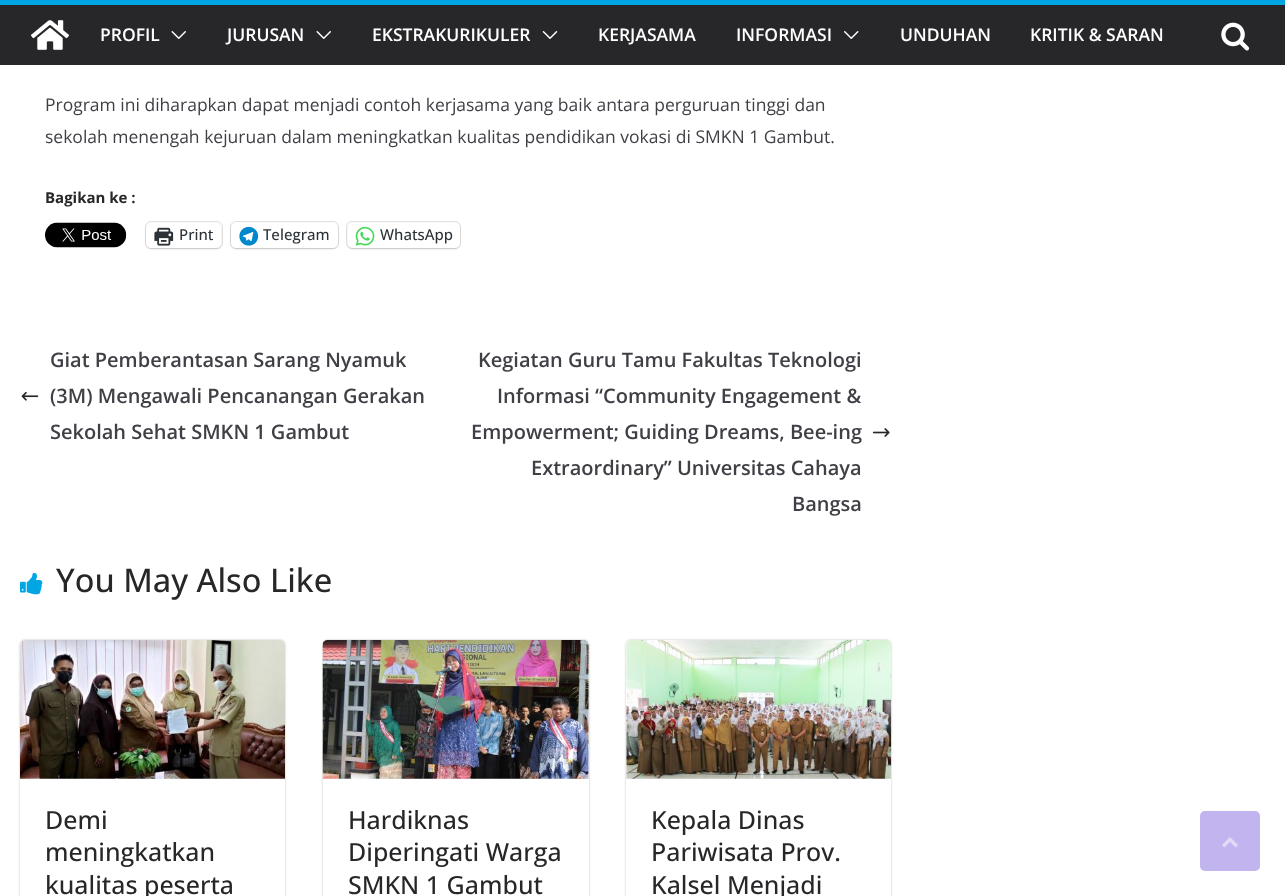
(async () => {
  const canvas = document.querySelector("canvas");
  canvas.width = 1285;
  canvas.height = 896;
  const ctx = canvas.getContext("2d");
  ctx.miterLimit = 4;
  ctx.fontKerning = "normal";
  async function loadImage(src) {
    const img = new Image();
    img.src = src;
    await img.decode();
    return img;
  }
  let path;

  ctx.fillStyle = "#ffffff";
  ctx.fillRect(0, 0, 1285, 896);
  ctx.fillStyle = "#27272a";
  ctx.fillRect(0, 5, 1285, 60);
  ctx.fillStyle = "#00a6e4";
  ctx.fillRect(0, 0, 1285, 5);
  ctx.drawImage(await loadImage("img/1.png"), 31, 20, 38, 30);
  ctx.drawImage(await loadImage("img/2.png"), 171, 31, 15, 8);
  ctx.drawImage(await loadImage("img/2.png"), 316, 31, 15, 8);
  ctx.drawImage(await loadImage("img/3.png"), 542, 31, 16, 8);
  ctx.drawImage(await loadImage("img/4.png"), 844, 31, 15, 8);
  ctx.drawImage(await loadImage("img/5.png"), 1221, 22, 29, 29);
  ctx.drawImage(await loadImage("img/6.png"), 45, 222, 82, 26);
  ctx.beginPath();
  ctx.roundRect(145.5, 221.5, 77, 27, 5.5);
  ctx.strokeStyle = "#e0e0e0";
  ctx.stroke();
  ctx.fillStyle = "rgba(0, 0, 0, 0.12)";
  ctx.filter = "blur(1px)";
  ctx.beginPath();
  ctx.roundRect(146, 224, 75, 25, 5);
  ctx.fill();
  ctx.filter = "none";
  ctx.fillStyle = "#ffffff";
  ctx.beginPath();
  ctx.roundRect(146, 223, 75, 25, 5);
  ctx.fill();
  ctx.drawImage(await loadImage("img/7.png"), 154, 227, 20, 19);
  ctx.beginPath();
  ctx.roundRect(230.5, 221.5, 108, 27, 5.5);
  ctx.stroke();
  ctx.fillStyle = "rgba(0, 0, 0, 0.12)";
  ctx.filter = "blur(1px)";
  ctx.beginPath();
  ctx.roundRect(231, 224, 107, 25, 5);
  ctx.fill();
  ctx.filter = "none";
  ctx.fillStyle = "#ffffff";
  ctx.beginPath();
  ctx.roundRect(231, 223, 107, 25, 5);
  ctx.fill();
  ctx.drawImage(await loadImage("img/8.png"), 239, 226, 20, 20);
  ctx.beginPath();
  ctx.roundRect(346.5, 221.5, 114, 27, 5.5);
  ctx.stroke();
  ctx.fillStyle = "rgba(0, 0, 0, 0.12)";
  ctx.filter = "blur(1px)";
  ctx.beginPath();
  ctx.roundRect(348, 224, 112, 25, 5);
  ctx.fill();
  ctx.filter = "none";
  ctx.fillStyle = "#ffffff";
  ctx.beginPath();
  ctx.roundRect(348, 223, 112, 25, 5);
  ctx.fill();
  ctx.drawImage(await loadImage("img/9.png"), 355, 226, 20, 20);
  ctx.drawImage(await loadImage("img/10.png"), 21, 391, 18, 10);
  ctx.drawImage(await loadImage("img/11.png"), 872, 428, 18, 9);
  ctx.drawImage(await loadImage("img/12.png"), 20, 572, 23, 23);
  ctx.save();
  path = new Path2D("M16 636H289V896H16ZM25 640H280C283 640 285 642 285 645V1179C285 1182 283 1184 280 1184H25C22 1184 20 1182 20 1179V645C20 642 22 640 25 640Z");
  ctx.clip(path, "evenodd");
  ctx.fillStyle = "rgba(0, 0, 0, 0.24)";
  ctx.filter = "blur(1px)";
  ctx.beginPath();
  ctx.roundRect(20, 640, 265, 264, 5);
  ctx.fill();
  ctx.filter = "none";
  ctx.restore();
  ctx.drawImage(await loadImage("img/13.png"), 20, 640, 265, 139);
  ctx.save();
  path = new Path2D("M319 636H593V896H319ZM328 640H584C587 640 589 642 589 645V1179C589 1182 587 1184 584 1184H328C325 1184 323 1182 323 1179V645C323 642 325 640 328 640Z");
  ctx.clip(path, "evenodd");
  ctx.fillStyle = "rgba(0, 0, 0, 0.24)";
  ctx.filter = "blur(1px)";
  ctx.beginPath();
  ctx.roundRect(323, 640, 266, 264, 5);
  ctx.fill();
  ctx.filter = "none";
  ctx.restore();
  ctx.drawImage(await loadImage("img/14.png"), 322, 640, 267, 139);
  ctx.save();
  path = new Path2D("M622 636H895V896H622ZM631 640H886C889 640 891 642 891 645V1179C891 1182 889 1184 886 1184H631C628 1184 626 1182 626 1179V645C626 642 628 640 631 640Z");
  ctx.clip(path, "evenodd");
  ctx.fillStyle = "rgba(0, 0, 0, 0.24)";
  ctx.filter = "blur(1px)";
  ctx.beginPath();
  ctx.roundRect(626, 640, 265, 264, 5);
  ctx.fill();
  ctx.filter = "none";
  ctx.restore();
  ctx.drawImage(await loadImage("img/15.png"), 626, 640, 266, 139);
  ctx.fillStyle = "#c1b4ef";
  ctx.beginPath();
  ctx.roundRect(1200, 811, 60, 60, 5);
  ctx.fill();
  ctx.drawImage(await loadImage("img/16.png"), 1222, 837, 16, 11);
  ctx.font = "600 17.5px Open Sans";
  ctx.fillStyle = "#ffffff";
  for (const [text, x, y] of [
    ["PROFIL", 100, 41],
    ["JURUSAN", 227, 41],
    ["EKSTRAKURIKULER", 372, 41],
    ["KERJASAMA", 598, 41],
    ["INFORMASI", 736, 41],
    ["UNDUHAN", 900, 41],
    ["KRITIK & SARAN", 1030, 41],
  ]) {
    ctx.fillText(text, x, y);
  }
  ctx.font = "17.5px Open Sans";
  ctx.fillStyle = "#3f3f46";
  ctx.fillText("Program ini diharapkan dapat menjadi contoh kerjasama yang baik antara perguruan tinggi dan", 45, 111);
  ctx.fillText("sekolah menengah kejuruan dalam meningkatkan kualitas pendidikan vokasi di SMKN 1 Gambut.", 45, 143);
  ctx.font = "bold 15px Open Sans";
  ctx.fillStyle = "#27272a";
  ctx.fillText("Bagikan ke :", 45, 203);
  ctx.font = "500 15px Open Sans";
  ctx.fillStyle = "#2c3338";
  for (const [text, x, y] of [
    ["Print", 179, 240],
    ["Telegram", 263, 240],
    ["WhatsApp", 380, 240],
  ]) {
    ctx.fillText(text, x, y);
  }
  ctx.font = "600 20px Open Sans";
  ctx.fillStyle = "#3f3f46";
  for (const [text, x, y] of [
    ["Giat Pemberantasan Sarang Nyamuk", 50, 367],
    ["(3M) Mengawali Pencanangan Gerakan", 50, 403],
    ["Sekolah Sehat SMKN 1 Gambut", 50, 439],
    ["Kegiatan Guru Tamu Fakultas Teknologi", 478, 367],
    ["Informasi “Community Engagement &", 497, 403],
    ["Empowerment; Guiding Dreams, Bee-ing", 471, 439],
    ["Extraordinary” Universitas Cahaya", 531, 475],
    ["Bangsa", 792, 511],
  ]) {
    ctx.fillText(text, x, y);
  }
  ctx.font = "500 32.5px Open Sans";
  ctx.fillStyle = "#27272a";
  ctx.fillText("You May Also Like", 56, 592);
  ctx.font = "500 25px Open Sans";
  for (const [text, x, y] of [
    ["Demi", 45, 829],
    ["meningkatkan", 45, 861],
    ["kualitas peserta", 45, 894],
    ["Hardiknas", 348, 829],
    ["Diperingati Warga", 348, 861],
    ["SMKN 1 Gambut", 348, 894],
    ["Kepala Dinas", 651, 829],
    ["Pariwisata Prov.", 651, 861],
    ["Kalsel Menjadi", 651, 894],
  ]) {
    ctx.fillText(text, x, y);
  }
})();
